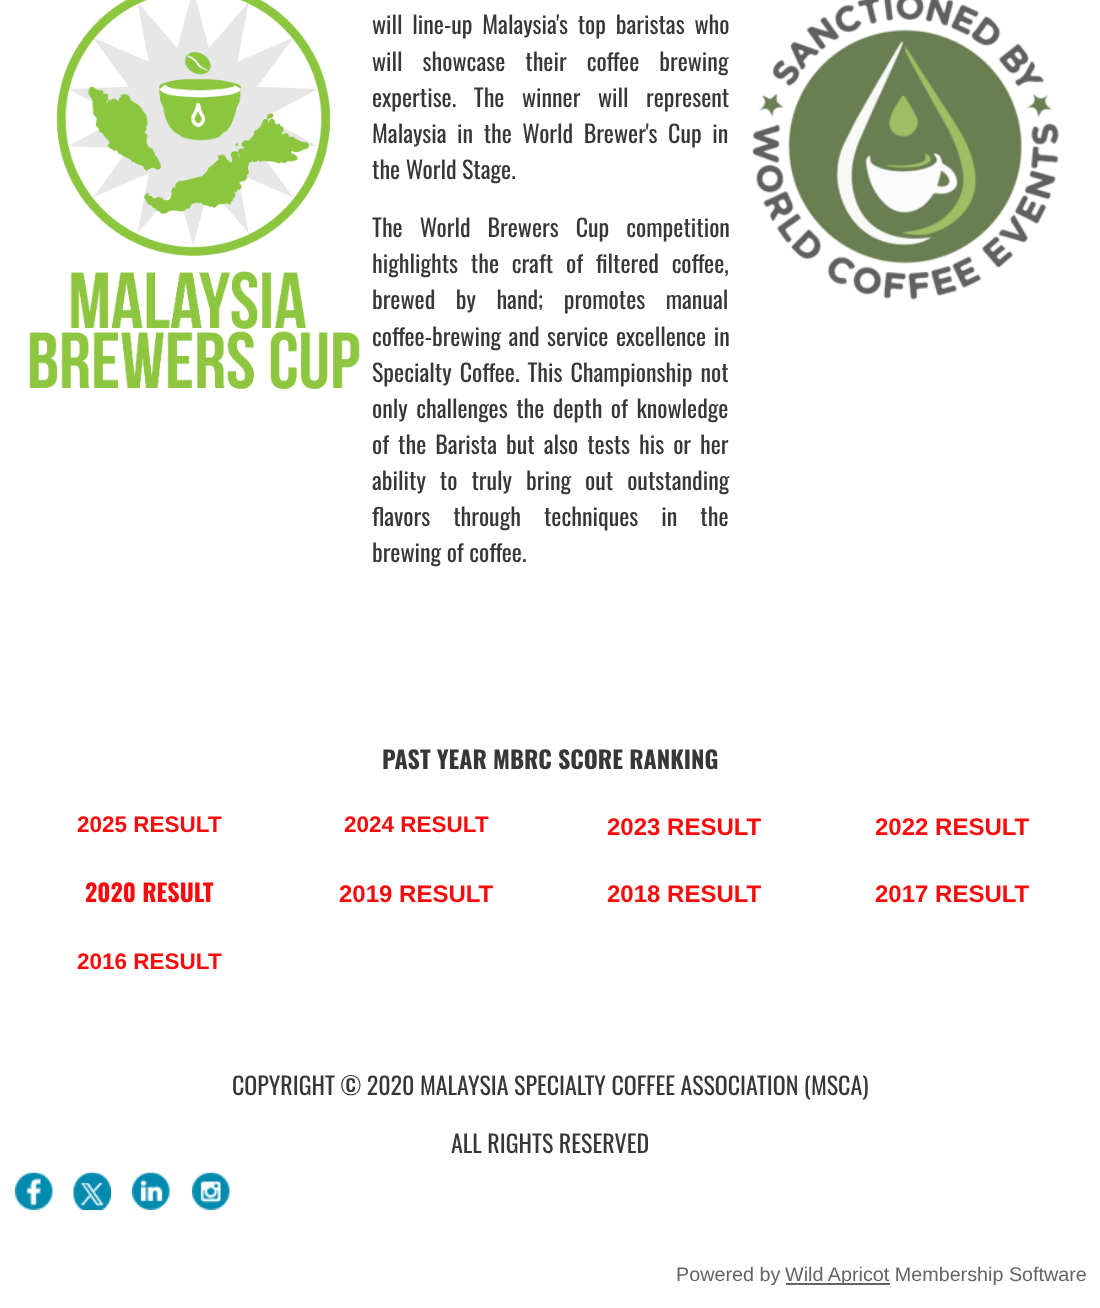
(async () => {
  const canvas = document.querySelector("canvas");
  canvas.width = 1100;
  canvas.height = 1308;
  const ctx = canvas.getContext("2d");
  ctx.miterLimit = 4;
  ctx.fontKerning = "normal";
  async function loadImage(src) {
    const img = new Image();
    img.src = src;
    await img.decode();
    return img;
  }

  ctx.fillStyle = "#ffffff";
  ctx.fillRect(0, 0, 1100, 1308);
  ctx.drawImage(await loadImage("img/1.png"), 29, 0, 331, 389);
  ctx.drawImage(await loadImage("img/2.png"), 751, 0, 308, 300);
  ctx.drawImage(await loadImage("img/3.png"), 15, 1172, 38, 38);
  ctx.drawImage(await loadImage("img/4.png"), 73, 1172, 38, 38);
  ctx.drawImage(await loadImage("img/5.png"), 132, 1172, 38, 38);
  ctx.drawImage(await loadImage("img/6.png"), 192, 1172, 38, 38);
  ctx.fillStyle = "#646464";
  ctx.fillRect(786, 1283, 104, 2);
  ctx.wordSpacing = "4.25px";
  ctx.font = "24px Oswald";
  ctx.fillStyle = "#373737";
  ctx.fillText("will line-up Malaysia's top baristas who", 372, 34);
  ctx.wordSpacing = "14.5px";
  ctx.fillText("will showcase their coffee brewing", 372, 71);
  ctx.wordSpacing = "12px";
  ctx.fillText("expertise. The winner will represent", 372, 107);
  ctx.wordSpacing = "5px";
  ctx.fillText("Malaysia in the World Brewer's Cup in", 372, 143);
  ctx.wordSpacing = "0px";
  ctx.fillText("the World Stage.", 372, 179);
  ctx.wordSpacing = "11.5px";
  ctx.fillText("The World Brewers Cup competition", 372, 237);
  ctx.wordSpacing = "7.25px";
  ctx.fillText("highlights the craft of filtered coffee,", 372, 273);
  ctx.wordSpacing = "15px";
  ctx.fillText("brewed by hand; promotes manual", 372, 309);
  ctx.wordSpacing = "2px";
  ctx.fillText("coffee-brewing and service excellence in", 372, 346);
  ctx.wordSpacing = "2.5px";
  ctx.fillText("Specialty Coffee. This Championship not", 372, 382);
  ctx.wordSpacing = "3px";
  ctx.fillText("only challenges the depth of knowledge", 372, 418);
  ctx.wordSpacing = "3.5px";
  ctx.fillText("of the Barista but also tests his or her", 372, 454);
  ctx.wordSpacing = "8.5px";
  ctx.fillText("ability to truly bring out outstanding", 372, 490);
  ctx.wordSpacing = "17.5px";
  ctx.fillText("flavors through techniques in the", 372, 526);
  ctx.wordSpacing = "0px";
  ctx.fillText("brewing of coffee.", 372, 562);
  ctx.font = "bold 24px Oswald";
  ctx.fillText("PAST YEAR MBRC SCORE RANKING", 382, 769);
  ctx.font = "bold 22.5px Liberation Sans";
  ctx.fillStyle = "#fa0a0b";
  ctx.fillText("2025 RESULT", 77, 832);
  ctx.fillText("2024 RESULT", 344, 832);
  ctx.font = "bold 24px Liberation Sans";
  ctx.fillText("2023 RESULT", 607, 835);
  ctx.fillText("2022 RESULT", 875, 835);
  ctx.font = "bold 24px Oswald";
  ctx.fillText("2020 RESULT", 85, 902);
  ctx.font = "bold 24px Liberation Sans";
  for (const [text, x, y] of [
    ["2019 RESULT", 339, 902],
    ["2018 RESULT", 607, 902],
    ["2017 RESULT", 875, 902],
  ]) {
    ctx.fillText(text, x, y);
  }
  ctx.font = "bold 22.5px Liberation Sans";
  ctx.fillText("2016 RESULT", 77, 969);
  ctx.font = "24px Oswald";
  ctx.fillStyle = "#373737";
  ctx.fillText("COPYRIGHT © 2020 MALAYSIA SPECIALTY COFFEE ASSOCIATION (MSCA)", 232, 1095);
  ctx.fillText("ALL RIGHTS RESERVED", 451, 1153);
  ctx.font = "19.75px Liberation Sans";
  ctx.fillStyle = "#646464";
  ctx.fillText("Powered by", 676, 1281);
  ctx.fillText("Wild Apricot Membership Software", 785, 1281);
})();
